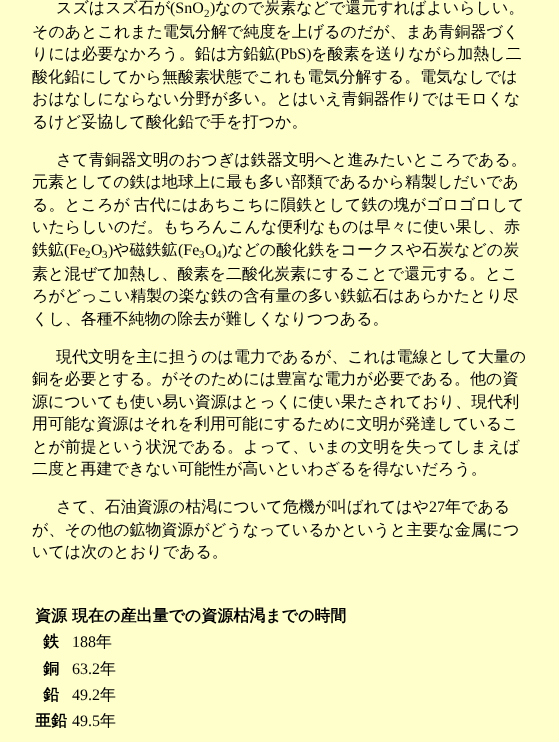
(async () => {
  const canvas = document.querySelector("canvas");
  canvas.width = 559;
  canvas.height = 742;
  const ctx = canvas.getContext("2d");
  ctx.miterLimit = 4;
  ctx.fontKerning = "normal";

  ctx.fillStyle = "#ffffcc";
  ctx.fillRect(0, 0, 559, 742);
  ctx.font = "500 16px WenQuanYi Zen Hei";
  ctx.fillStyle = "#000000";
  ctx.fillText("スズはスズ石が", 56, 13);
  ctx.font = "16px Liberation Serif";
  ctx.fillText("(SnO", 170, 13);
  ctx.font = "11px Liberation Serif";
  ctx.fillText("2", 204, 17);
  ctx.font = "16px Liberation Serif";
  ctx.fillText(")", 210, 13);
  ctx.font = "500 16px WenQuanYi Zen Hei";
  for (const [text, x, y] of [
    ["なので炭素などで還元すればよいらしい。", 215, 13],
    ["そのあとこれまた電気分解で純度を上げるのだが、まあ青銅器づく", 32, 37],
    ["りには必要なかろう。鉛は方鉛鉱", 32, 59],
  ]) {
    ctx.fillText(text, x, y);
  }
  ctx.font = "16px Liberation Serif";
  ctx.fillText("(PbS)", 275, 59);
  ctx.font = "500 16px WenQuanYi Zen Hei";
  for (const [text, x, y] of [
    ["を酸素を送りながら加熱し二", 311, 59],
    ["酸化鉛にしてから無酸素状態でこれも電気分解する。電気なしでは", 32, 82],
    ["おはなしにならない分野が多い。とはいえ青銅器作りではモロくな", 32, 104],
    ["るけど妥協して酸化鉛で手を打つか。", 32, 127],
    ["さて青銅器文明のおつぎは鉄器文明へと進みたいところである。", 56, 165],
    ["元素としての鉄は地球上に最も多い部類であるから精製しだいであ", 32, 187],
  ]) {
    ctx.fillText(text, x, y);
  }
  ctx.wordSpacing = "-1px";
  ctx.fillText("る。ところが 古代にはあちこちに隕鉄として鉄の塊がゴロゴロして", 32, 210);
  ctx.wordSpacing = "0px";
  ctx.fillText("いたらしいのだ。もちろんこんな便利なものは早々に使い果し、赤", 32, 232);
  ctx.fillText("鉄鉱", 32, 255);
  ctx.font = "16px Liberation Serif";
  ctx.fillText("(Fe", 64, 255);
  ctx.font = "11px Liberation Serif";
  ctx.fillText("2", 85, 258);
  ctx.font = "16px Liberation Serif";
  ctx.fillText("O", 91, 255);
  ctx.font = "11px Liberation Serif";
  ctx.fillText("3", 102, 258);
  ctx.font = "16px Liberation Serif";
  ctx.fillText(")", 108, 255);
  ctx.font = "500 16px WenQuanYi Zen Hei";
  ctx.fillText("や磁鉄鉱", 113, 255);
  ctx.font = "16px Liberation Serif";
  ctx.fillText("(Fe", 178, 255);
  ctx.font = "11px Liberation Serif";
  ctx.fillText("3", 199, 258);
  ctx.font = "16px Liberation Serif";
  ctx.fillText("O", 205, 255);
  ctx.font = "11px Liberation Serif";
  ctx.fillText("4", 216, 258);
  ctx.font = "16px Liberation Serif";
  ctx.fillText(")", 222, 255);
  ctx.font = "500 16px WenQuanYi Zen Hei";
  for (const [text, x, y] of [
    ["などの酸化鉄をコークスや石炭などの炭", 227, 255],
    ["素と混ぜて加熱し、酸素を二酸化炭素にすることで還元する。とこ", 32, 279],
    ["ろがどっこい精製の楽な鉄の含有量の多い鉄鉱石はあらかたとり尽", 32, 301],
    ["くし、各種不純物の除去が難しくなりつつある。", 32, 324],
    ["現代文明を主に担うのは電力であるが、これは電線として大量の", 56, 362],
    ["銅を必要とする。がそのためには豊富な電力が必要である。他の資", 32, 384],
    ["源についても使い易い資源はとっくに使い果たされており、現代利", 32, 407],
    ["用可能な資源はそれを利用可能にするために文明が発達しているこ", 32, 429],
    ["とが前提という状況である。よって、いまの文明を失ってしまえば", 32, 452],
    ["二度と再建できない可能性が高いといわざるを得ないだろう。", 32, 474],
    ["さて、石油資源の枯渇について危機が叫ばれてはや", 56, 512],
  ]) {
    ctx.fillText(text, x, y);
  }
  ctx.font = "16px Liberation Serif";
  ctx.fillText("27", 429, 512);
  ctx.font = "500 16px WenQuanYi Zen Hei";
  for (const [text, x, y] of [
    ["年である", 445, 512],
    ["が、その他の鉱物資源がどうなっているかというと主要な金属につ", 32, 535],
    ["いては次のとおりである。", 32, 557],
  ]) {
    ctx.fillText(text, x, y);
  }
  ctx.font = "bold 16px WenQuanYi Zen Hei";
  for (const [text, x, y] of [
    ["資源", 35, 621],
    ["現在の産出量での資源枯渇までの時間", 72, 621],
    ["鉄", 43, 647],
  ]) {
    ctx.fillText(text, x, y);
  }
  ctx.font = "16px Liberation Serif";
  ctx.fillText("188", 72, 647);
  ctx.font = "500 16px WenQuanYi Zen Hei";
  ctx.fillText("年", 96, 647);
  ctx.font = "bold 16px WenQuanYi Zen Hei";
  ctx.fillText("銅", 43, 674);
  ctx.font = "16px Liberation Serif";
  ctx.fillText("63.2", 72, 674);
  ctx.font = "500 16px WenQuanYi Zen Hei";
  ctx.fillText("年", 100, 674);
  ctx.font = "bold 16px WenQuanYi Zen Hei";
  ctx.fillText("鉛", 43, 700);
  ctx.font = "16px Liberation Serif";
  ctx.fillText("49.2", 72, 700);
  ctx.font = "500 16px WenQuanYi Zen Hei";
  ctx.fillText("年", 100, 700);
  ctx.font = "bold 16px WenQuanYi Zen Hei";
  ctx.fillText("亜鉛", 35, 726);
  ctx.font = "16px Liberation Serif";
  ctx.fillText("49.5", 72, 726);
  ctx.font = "500 16px WenQuanYi Zen Hei";
  ctx.fillText("年", 100, 726);
})();
